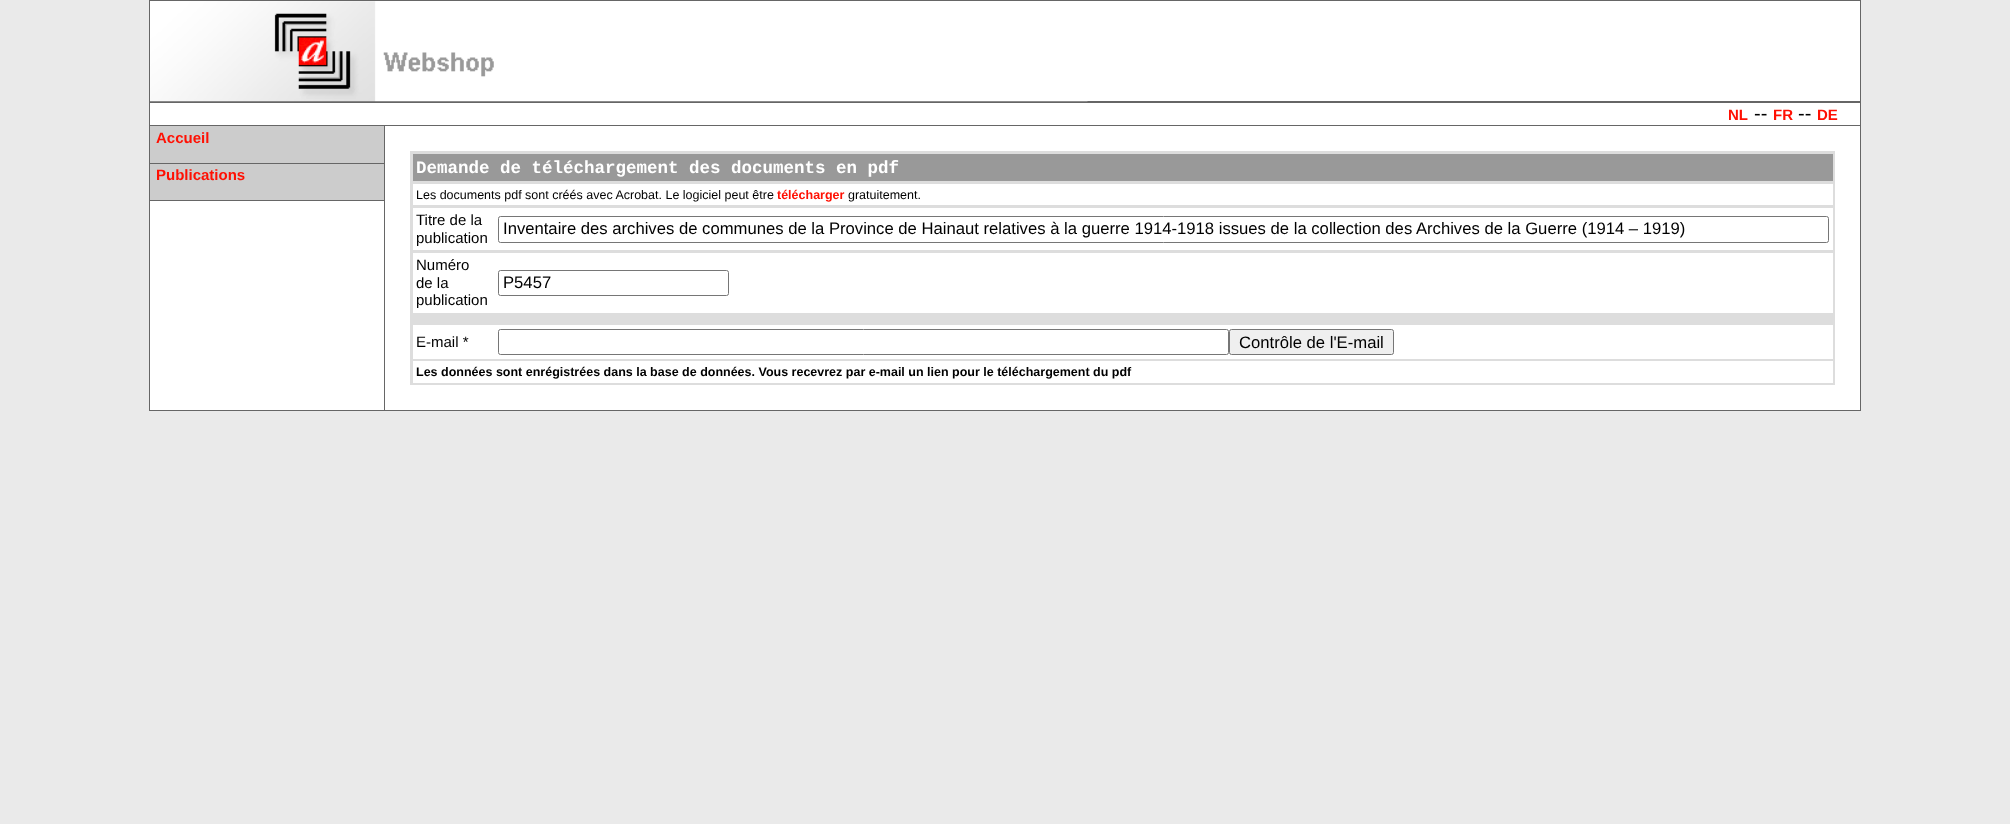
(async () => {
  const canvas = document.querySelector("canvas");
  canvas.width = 2010;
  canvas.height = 824;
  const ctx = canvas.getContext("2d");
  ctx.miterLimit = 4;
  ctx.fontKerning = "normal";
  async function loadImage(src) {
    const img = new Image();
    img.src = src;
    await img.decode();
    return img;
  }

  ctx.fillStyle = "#eaeaea";
  ctx.fillRect(0, 0, 2010, 824);
  ctx.fillStyle = "#666666";
  ctx.fillRect(149, 0, 1712, 411);
  ctx.fillStyle = "#ffffff";
  ctx.fillRect(150, 1, 1710, 100);
  ctx.drawImage(await loadImage("img/1.png"), 150, 1, 938, 101);
  for (const [x, y, w, h, color] of [
    [150, 103, 1710, 22, "#ffffff"],
    [150, 201, 234, 209, "#ffffff"],
    [150, 126, 234, 37, "#cccccc"],
    [150, 164, 234, 36, "#cccccc"],
    [385, 126, 1475, 284, "#ffffff"],
    [410, 151, 1425, 234, "#dddddd"],
    [413, 154, 1420, 27, "#999999"],
    [413, 184, 1420, 21, "#ffffff"],
    [413, 208, 1420, 42, "#ffffff"],
  ]) {
    ctx.fillStyle = color;
    ctx.fillRect(x, y, w, h);
  }
  ctx.beginPath();
  ctx.roundRect(498.5, 216.5, 1330, 26, 2);
  ctx.strokeStyle = "#767676";
  ctx.stroke();
  ctx.fillRect(413, 253, 1420, 60);
  ctx.beginPath();
  ctx.roundRect(498.5, 270.5, 230, 25, 2);
  ctx.stroke();
  ctx.fillRect(413, 325, 1420, 34);
  ctx.beginPath();
  ctx.roundRect(498.5, 329.5, 730, 25, 2);
  ctx.stroke();
  ctx.fillStyle = "#efefef";
  ctx.beginPath();
  ctx.roundRect(1229.5, 329.5, 164, 25, 2);
  ctx.fill();
  ctx.stroke();
  ctx.fillStyle = "#ffffff";
  ctx.fillRect(413, 361, 1420, 22);
  ctx.font = "bold 15px Liberation Sans";
  ctx.fillStyle = "#ff1003";
  ctx.fillText("NL", 1728, 120);
  ctx.font = "20px Liberation Sans";
  ctx.fillStyle = "#000000";
  ctx.fillText("--", 1754, 120);
  ctx.font = "bold 15px Liberation Sans";
  ctx.fillStyle = "#ff1003";
  ctx.fillText("FR", 1773, 120);
  ctx.font = "20px Liberation Sans";
  ctx.fillStyle = "#000000";
  ctx.fillText("--", 1798, 120);
  ctx.font = "bold 15px Liberation Sans";
  ctx.fillStyle = "#ff1003";
  for (const [text, x, y] of [
    ["DE", 1817, 120],
    ["Accueil", 156, 143],
    ["Publications", 156, 180],
  ]) {
    ctx.fillText(text, x, y);
  }
  ctx.font = "bold 17.5px Liberation Mono";
  ctx.fillStyle = "#ffffff";
  ctx.fillText("Demande de téléchargement des documents en pdf", 416, 173);
  ctx.font = "12.5px Liberation Sans";
  ctx.fillStyle = "#000000";
  ctx.fillText("Les documents pdf sont créés avec Acrobat. Le logiciel peut être", 416, 199);
  ctx.font = "bold 12.5px Liberation Sans";
  ctx.fillStyle = "#ff1003";
  ctx.fillText("télécharger", 777, 199);
  ctx.font = "12.5px Liberation Sans";
  ctx.fillStyle = "#000000";
  ctx.fillText("gratuitement.", 848, 199);
  ctx.font = "15px Liberation Sans";
  ctx.fillText("Titre de la", 416, 225);
  ctx.fillText("publication", 416, 243);
  ctx.font = "16.67px Liberation Sans";
  ctx.fillText("Inventaire des archives de communes de la Province de Hainaut relatives à la guerre 1914-1918 issues de la collection des Archives de la Guerre (1914 – 1919)", 503, 234);
  ctx.font = "15px Liberation Sans";
  for (const [text, x, y] of [
    ["Numéro", 416, 270],
    ["de la", 416, 288],
    ["publication", 416, 305],
  ]) {
    ctx.fillText(text, x, y);
  }
  ctx.font = "16.67px Liberation Sans";
  ctx.fillText("P5457", 503, 288);
  ctx.font = "15px Liberation Sans";
  ctx.fillText("E-mail *", 416, 347);
  ctx.font = "16.67px Liberation Sans";
  ctx.fillText("Contrôle de l'E-mail", 1239, 348);
  ctx.font = "bold 12.5px Liberation Sans";
  ctx.fillText("Les données sont enrégistrées dans la base de données. Vous recevrez par e-mail un lien pour le téléchargement du pdf", 416, 376);
})();
